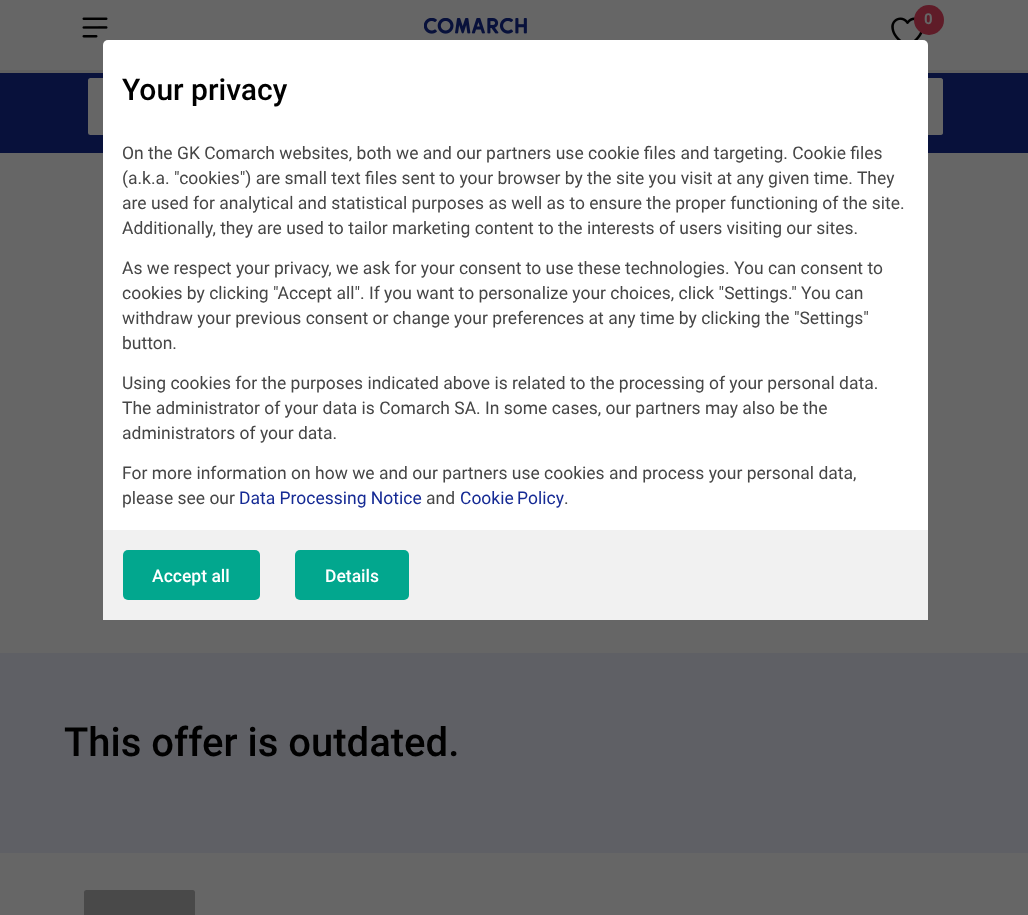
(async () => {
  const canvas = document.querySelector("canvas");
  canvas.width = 1028;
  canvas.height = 915;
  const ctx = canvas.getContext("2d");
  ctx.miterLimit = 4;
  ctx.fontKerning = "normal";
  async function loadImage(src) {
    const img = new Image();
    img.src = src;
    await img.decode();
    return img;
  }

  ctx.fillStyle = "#666666";
  ctx.fillRect(0, 0, 1028, 915);
  ctx.fillStyle = "#606060";
  ctx.fillRect(0, 70, 1028, 3);
  ctx.drawImage(await loadImage("img/1.png"), 82, 17, 26, 21);
  ctx.drawImage(await loadImage("img/2.png"), 424, 18, 103, 16);
  ctx.drawImage(await loadImage("img/3.png"), 891, 17, 32, 23);
  ctx.fillStyle = "#5f1c28";
  ctx.beginPath();
  ctx.arc(929, 20, 15, 0, Math.PI * 2);
  ctx.fill();
  ctx.fillStyle = "#08113b";
  ctx.fillRect(0, 73, 1028, 80);
  ctx.fillStyle = "#666666";
  ctx.beginPath();
  ctx.roundRect(88, 78, 855, 57, 2.5);
  ctx.fill();
  ctx.beginPath();
  ctx.roundRect(888, 78, 55, 57, 4);
  ctx.fill();
  ctx.fillStyle = "#ffffff";
  ctx.beginPath();
  ctx.roundRect(103, 40, 825, 580, 5);
  ctx.fill();
  ctx.fillStyle = "#f1f1f1";
  ctx.fillRect(103, 530, 825, 90);
  ctx.fillStyle = "#02a78e";
  ctx.beginPath();
  ctx.roundRect(123, 550, 137, 50, 5);
  ctx.fill();
  ctx.beginPath();
  ctx.roundRect(295, 550, 114, 50, 5);
  ctx.fill();
  ctx.fillStyle = "#5f6065";
  ctx.fillRect(0, 653, 1028, 200);
  ctx.fillStyle = "#494949";
  ctx.beginPath();
  ctx.roundRect(84, 890, 111, 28, 2.5);
  ctx.fill();
  ctx.font = "bold 15px Roboto";
  ctx.fillStyle = "#666666";
  ctx.fillText("0", 924, 24);
  ctx.font = "500 30px Roboto";
  ctx.fillStyle = "#000000";
  ctx.fillText("Your privacy", 122, 100);
  ctx.font = "17.5px Roboto";
  ctx.fillStyle = "#464646";
  for (const [text, x, y] of [
    ["On the GK Comarch websites, both we and our partners use cookie files and targeting. Cookie files", 122, 159],
    ["(a.k.a. \"cookies\") are small text files sent to your browser by the site you visit at any given time. They", 122, 184],
    ["are used for analytical and statistical purposes as well as to ensure the proper functioning of the site.", 122, 209],
    ["Additionally, they are used to tailor marketing content to the interests of users visiting our sites.", 122, 234],
    ["As we respect your privacy, we ask for your consent to use these technologies. You can consent to", 122, 274],
    ["cookies by clicking \"Accept all\". If you want to personalize your choices, click \"Settings.\" You can", 122, 299],
    ["withdraw your previous consent or change your preferences at any time by clicking the \"Settings\"", 122, 324],
    ["button.", 122, 349],
    ["Using cookies for the purposes indicated above is related to the processing of your personal data.", 122, 389],
    ["The administrator of your data is Comarch SA. In some cases, our partners may also be the", 122, 414],
    ["administrators of your data.", 122, 439],
    ["For more information on how we and our partners use cookies and process your personal data,", 122, 479],
    ["please see our", 122, 504],
  ]) {
    ctx.fillText(text, x, y);
  }
  ctx.fillStyle = "#152a94";
  ctx.fillText("Data Processing Notice", 239, 504);
  ctx.fillStyle = "#464646";
  ctx.fillText("and", 426, 504);
  ctx.wordSpacing = "-1px";
  ctx.fillStyle = "#152a94";
  ctx.fillText("Cookie Policy", 460, 504);
  ctx.wordSpacing = "0px";
  ctx.fillStyle = "#464646";
  ctx.fillText(".", 564, 504);
  ctx.font = "500 17.5px Roboto";
  ctx.fillStyle = "#ffffff";
  ctx.fillText("Accept all", 152, 582);
  ctx.fillText("Details", 325, 582);
  ctx.font = "500 40px Roboto";
  ctx.fillStyle = "#000000";
  ctx.fillText("This offer is outdated.", 64, 756);
})();
